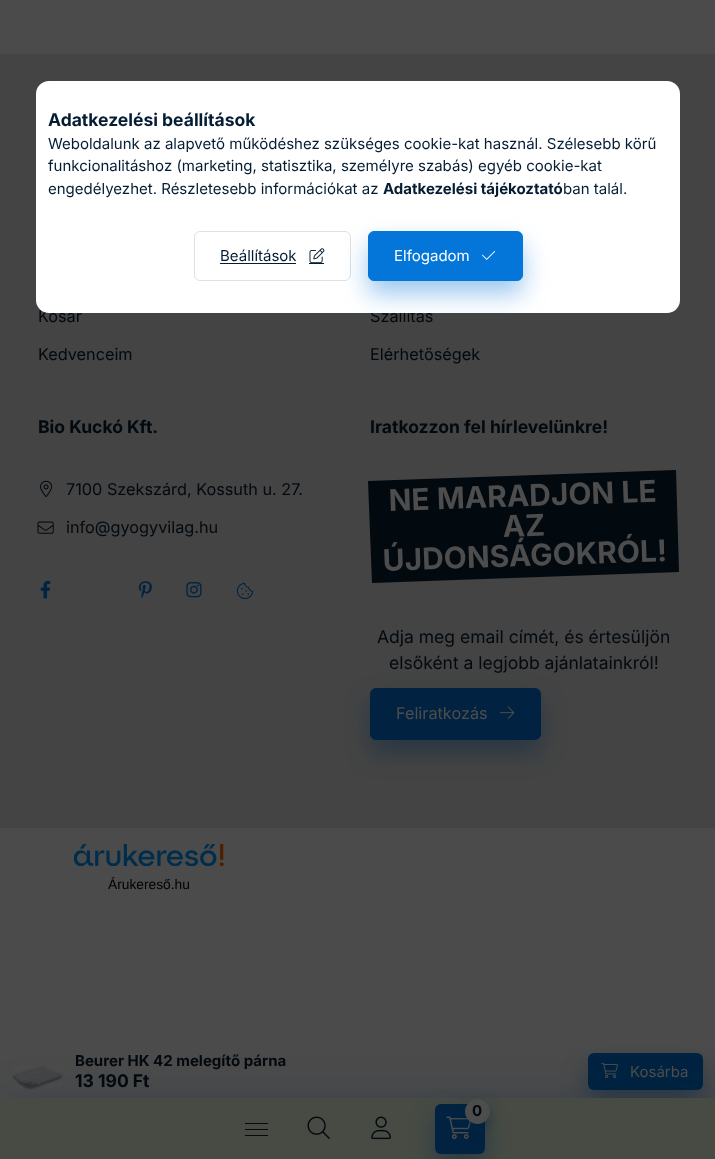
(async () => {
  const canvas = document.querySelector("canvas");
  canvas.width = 715;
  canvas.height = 1159;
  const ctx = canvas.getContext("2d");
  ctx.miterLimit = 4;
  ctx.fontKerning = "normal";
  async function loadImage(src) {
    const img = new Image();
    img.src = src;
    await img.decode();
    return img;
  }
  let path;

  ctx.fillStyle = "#4b4b4b";
  ctx.fillRect(0, 0, 715, 1159);
  ctx.fillStyle = "#444444";
  ctx.fillRect(0, 54, 715, 774);
  ctx.drawImage(await loadImage("img/3.png"), 40, 480, 13, 17);
  ctx.drawImage(await loadImage("img/4.png"), 37, 521, 17, 13);
  ctx.drawImage(await loadImage("img/5.png"), 40, 580, 11, 19);
  ctx.drawImage(await loadImage("img/6.png"), 138, 581, 14, 18);
  ctx.drawImage(await loadImage("img/7.png"), 186, 582, 16, 16);
  ctx.drawImage(await loadImage("img/8.png"), 236, 582, 18, 18);
  ctx.fillStyle = "#02090f";
  path = new Path2D("M368 481L676 470L679 572L372 583Z");
  ctx.fill(path);
  ctx.fillStyle = "rgba(1, 35, 65, 0.4)";
  ctx.filter = "blur(12.5px)";
  ctx.beginPath();
  ctx.roundRect(370, 700, 171, 53, 6);
  ctx.fill();
  ctx.filter = "none";
  ctx.fillStyle = "#012341";
  ctx.beginPath();
  ctx.roundRect(370.5, 688.5, 170, 51, 5.5);
  ctx.fill();
  ctx.strokeStyle = "#012341";
  ctx.stroke();
  ctx.drawImage(await loadImage("img/9.png"), 500, 706, 15, 13);
  ctx.drawImage(await loadImage("img/10.png"), 74, 844, 150, 22);
  ctx.drawImage(await loadImage("img/11.png"), 12, 1065, 51, 25);
  ctx.save();
  ctx.beginPath();
  ctx.rect(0, 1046, 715, 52);
  ctx.clip();
  ctx.fillStyle = "rgba(1, 35, 65, 0.4)";
  ctx.filter = "blur(12.5px)";
  ctx.beginPath();
  ctx.roundRect(588, 1065, 115, 38, 6);
  ctx.fill();
  ctx.filter = "none";
  ctx.restore();
  ctx.beginPath();
  ctx.roundRect(588, 1053, 115, 37, 6);
  ctx.fill();
  ctx.drawImage(await loadImage("img/12.png"), 601, 1063, 17, 16);
  ctx.fillStyle = "rgba(1, 35, 65, 0.2)";
  ctx.filter = "blur(19px)";
  ctx.beginPath();
  ctx.rect(0, 1098, 715, 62);
  ctx.fill();
  ctx.filter = "none";
  ctx.fillStyle = "#474b44";
  ctx.fillRect(0, 1098, 715, 61);
  ctx.fillStyle = "rgba(1, 35, 65, 0.4)";
  ctx.filter = "blur(12.5px)";
  ctx.beginPath();
  ctx.roundRect(435, 1116, 50, 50, 6);
  ctx.fill();
  ctx.filter = "none";
  ctx.fillStyle = "#012341";
  ctx.beginPath();
  ctx.roundRect(435, 1104, 50, 50, 6);
  ctx.fill();
  ctx.drawImage(await loadImage("img/13.png"), 446, 1116, 25, 23);
  ctx.fillStyle = "rgba(1, 35, 65, 0.4)";
  ctx.filter = "blur(6px)";
  ctx.beginPath();
  ctx.roundRect(465, 1105, 25, 25, 12.5);
  ctx.fill();
  ctx.filter = "none";
  ctx.fillStyle = "#4d4d4d";
  ctx.beginPath();
  ctx.arc(477.5, 1111.5, 12.5, 0, Math.PI * 2);
  ctx.fill();
  for (const [x, y, w, h, color] of [
    [245, 1123, 23, 1, "#02090f"],
    [245, 1129, 23, 1, "#02090f"],
    [245, 1135, 23, 1, "#02090f"],
  ]) {
    ctx.fillStyle = color;
    ctx.fillRect(x, y, w, h);
  }
  ctx.drawImage(await loadImage("img/14.png"), 307, 1116, 23, 23);
  ctx.drawImage(await loadImage("img/15.png"), 371, 1116, 20, 24);
  ctx.font = "16.25px Inter";
  for (const [text, x, y] of [
    ["Kosár", 38, 322],
    ["Kedvenceim", 38, 360],
    ["Szállítás", 370, 322],
  ]) {
    ctx.fillText(text, x, y);
  }
  ctx.fillStyle = "#ffffff";
  ctx.beginPath();
  ctx.roundRect(36, 81, 644, 232, 13);
  ctx.fill();
  ctx.beginPath();
  ctx.roundRect(194.5, 231.5, 156, 49, 5.5);
  ctx.strokeStyle = "#e1e1e1";
  ctx.stroke();
  ctx.save();
  ctx.beginPath();
  ctx.roundRect(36, 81, 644, 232, 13);
  ctx.clip();
  ctx.fillStyle = "rgba(4, 118, 217, 0.4)";
  ctx.filter = "blur(12.5px)";
  ctx.beginPath();
  ctx.roundRect(368, 244, 155, 50, 6);
  ctx.fill();
  ctx.filter = "none";
  ctx.restore();
  ctx.fillStyle = "#0476d9";
  ctx.beginPath();
  ctx.roundRect(368.5, 231.5, 154, 49, 5.5);
  ctx.fill();
  ctx.strokeStyle = "#0476d9";
  ctx.stroke();
  ctx.drawImage(await loadImage("img/2.png"), 482, 251, 14, 9);
  ctx.font = "15px Inter";
  ctx.fillStyle = "#ffffff";
  ctx.fillText("Elfogadom", 394, 261);
  ctx.drawImage(await loadImage("img/1.png"), 309, 248, 16, 15);
  ctx.fillStyle = "#051d33";
  ctx.fillRect(309, 263, 15, 1);
  ctx.fillText("Beállítások", 220, 261);
  ctx.fillRect(220, 263, 76, 1);
  ctx.fillText("ban talál.", 563, 194);
  ctx.font = "bold 15px Inter";
  ctx.fillText("Adatkezelési tájékoztató", 383, 194);
  ctx.font = "15px Inter";
  for (const [text, x, y] of [
    ["engedélyezhet. Részletesebb információkat az", 48, 194],
    ["funkcionalitáshoz (marketing, statisztika, személyre szabás) egyéb cookie-kat", 48, 171],
    ["Weboldalunk az alapvető működéshez szükséges cookie-kat használ. Szélesebb körű", 48, 149],
  ]) {
    ctx.fillText(text, x, y);
  }
  ctx.font = "bold 17.5px Inter";
  ctx.fillText("Adatkezelési beállítások", 48, 126);
  ctx.font = "16.25px Inter";
  ctx.fillStyle = "#02090f";
  ctx.fillText("Elérhetőségek", 370, 360);
  ctx.font = "bold 17.5px Inter";
  ctx.fillText("Bio Kuckó Kft.", 38, 433);
  ctx.font = "16.25px Inter";
  ctx.fillText("7100 Szekszárd, Kossuth u. 27.", 66, 495);
  ctx.fillText("info@gyogyvilag.hu", 66, 533);
  ctx.font = "bold 17.5px Inter";
  ctx.fillText("Iratkozzon fel hírlevelünkre!", 370, 433);
  ctx.font = "bold 30px Inter";
  ctx.fillStyle = "#4d4d4d";
  ctx.save();
  ctx.translate(389, 511);
  ctx.rotate(-2 * Math.PI / 180);
  ctx.fillText("NE MARADJON LE", 0, 0);
  ctx.restore();
  ctx.save();
  ctx.translate(503, 537);
  ctx.rotate(-2 * Math.PI / 180);
  ctx.fillText("AZ", 0, 0);
  ctx.restore();
  ctx.save();
  ctx.translate(383, 571);
  ctx.rotate(-2 * Math.PI / 180);
  ctx.fillText("ÚJDONSÁGOKRÓL!", 0, 0);
  ctx.restore();
  ctx.font = "17.5px Inter";
  ctx.fillStyle = "#02090f";
  ctx.fillText("Adja meg email címét, és értesüljön", 377, 643);
  ctx.fillText("elsőként a legjobb ajánlatainkról!", 389, 669);
  ctx.font = "16.25px Inter";
  ctx.fillStyle = "#4d4d4d";
  ctx.fillText("Feliratkozás", 396, 719);
  ctx.font = "13.75px Liberation Sans";
  ctx.fillStyle = "#000000";
  ctx.fillText("Árukereső.hu", 108, 889);
  ctx.font = "bold 15px Inter";
  ctx.fillStyle = "#02090f";
  ctx.fillText("Beurer HK 42 melegítő párna", 75, 1066);
  ctx.font = "bold 17.5px Inter";
  ctx.fillText("13 190 Ft", 75, 1087);
  ctx.font = "15px Inter";
  ctx.fillStyle = "#4d4d4d";
  ctx.fillText("Kosárba", 630, 1077);
  ctx.font = "bold 15px Inter";
  ctx.fillStyle = "#02090f";
  ctx.fillText("0", 472, 1116);
})();
